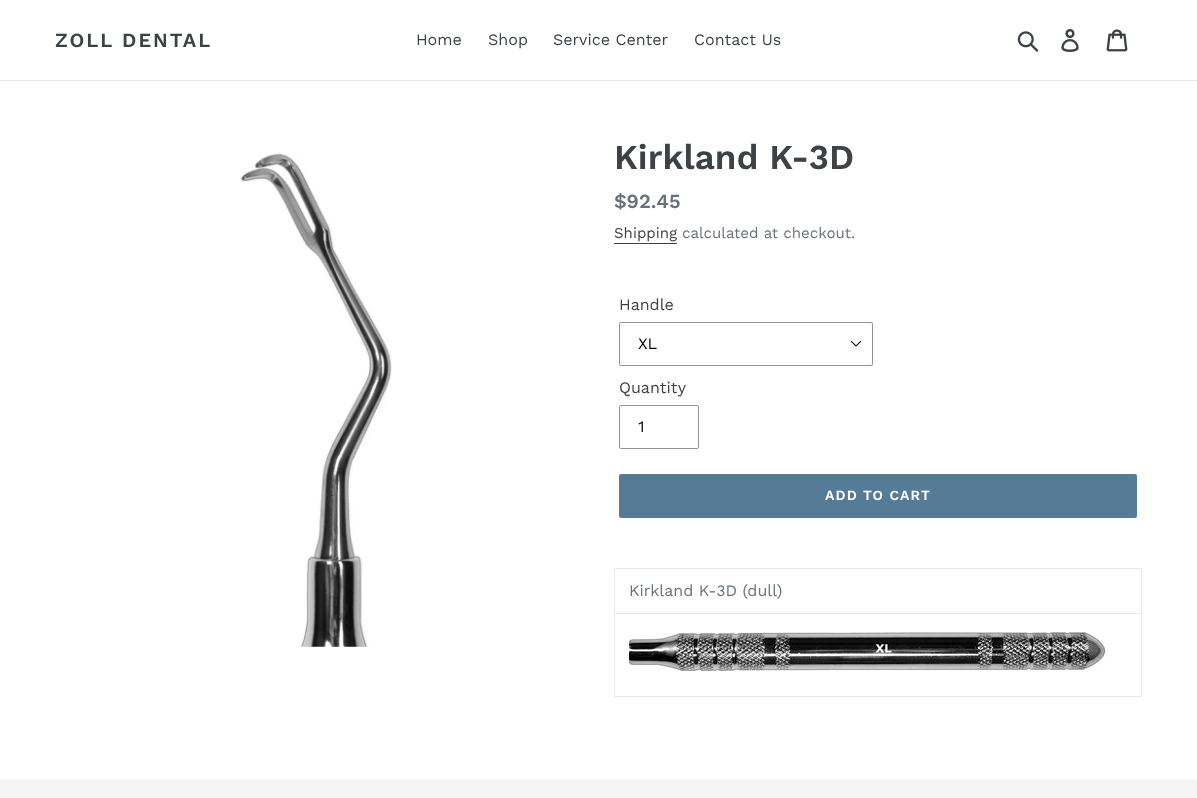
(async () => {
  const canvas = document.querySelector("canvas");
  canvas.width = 1197;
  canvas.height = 798;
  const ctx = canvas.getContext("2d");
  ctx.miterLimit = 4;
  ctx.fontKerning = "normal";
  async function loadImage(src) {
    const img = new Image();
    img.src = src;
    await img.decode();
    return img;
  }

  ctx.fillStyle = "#ffffff";
  ctx.fillRect(0, 0, 1197, 798);
  ctx.fillStyle = "#e8e9eb";
  ctx.fillRect(0, 80, 1197, 1);
  ctx.drawImage(await loadImage("img/1.png"), 1017, 31, 22, 21);
  ctx.drawImage(await loadImage("img/2.png"), 1061, 29, 18, 23);
  ctx.drawImage(await loadImage("img/3.png"), 1106, 29, 22, 23);
  ctx.drawImage(await loadImage("img/4.png"), 240, 152, 152, 495);
  ctx.fillStyle = "#3d4246";
  ctx.fillRect(614, 243, 63, 1);
  ctx.drawImage(await loadImage("img/5.png"), 850, 340, 12, 7);
  ctx.beginPath();
  ctx.roundRect(619.5, 322.5, 253, 43, 1.5);
  ctx.strokeStyle = "#949494";
  ctx.stroke();
  ctx.beginPath();
  ctx.roundRect(619.5, 405.5, 79, 43, 1.5);
  ctx.stroke();
  ctx.fillStyle = "#557b97";
  ctx.beginPath();
  ctx.roundRect(619, 474, 518, 44, 2);
  ctx.fill();
  for (const [x, y, w, h, color] of [
    [614, 568, 528, 1, "#e8e9eb"],
    [614, 613, 528, 1, "#e8e9eb"],
    [1141, 613, 1, 84, "#e8e9eb"],
    [1141, 568, 1, 46, "#e8e9eb"],
    [614, 696, 528, 1, "#e8e9eb"],
    [614, 613, 1, 84, "#e8e9eb"],
    [614, 568, 1, 46, "#e8e9eb"],
  ]) {
    ctx.fillStyle = color;
    ctx.fillRect(x, y, w, h);
  }
  ctx.drawImage(await loadImage("img/6.png"), 629, 632, 479, 40);
  ctx.fillStyle = "#f5f5f5";
  ctx.fillRect(0, 779, 1197, 19);
  ctx.letterSpacing = "2px";
  ctx.font = "600 20px Work Sans";
  ctx.fillStyle = "#3d4246";
  ctx.fillText("ZOLL DENTAL", 55, 47);
  ctx.letterSpacing = "0px";
  ctx.font = "16px Work Sans";
  for (const [text, x, y] of [
    ["Home", 416, 45],
    ["Shop", 488, 45],
    ["Service Center", 553, 45],
    ["Contact Us", 694, 45],
  ]) {
    ctx.fillText(text, x, y);
  }
  ctx.font = "600 35px Work Sans";
  ctx.fillText("Kirkland K-3D", 614, 169);
  ctx.font = "600 20px Work Sans";
  ctx.fillStyle = "#69727b";
  ctx.fillText("$92.45", 614, 208);
  ctx.font = "15px Work Sans";
  ctx.fillStyle = "#3d4246";
  ctx.fillText("Shipping", 614, 238);
  ctx.fillStyle = "#69727b";
  ctx.fillText("calculated at checkout.", 682, 238);
  ctx.font = "16px Work Sans";
  ctx.fillStyle = "#3d4246";
  ctx.fillText("Handle", 619, 310);
  ctx.fillStyle = "#000000";
  ctx.fillText("XL", 638, 349);
  ctx.fillStyle = "#3d4246";
  ctx.fillText("Quantity", 619, 393);
  ctx.fillStyle = "#000000";
  ctx.fillText("1", 638, 432);
  ctx.letterSpacing = "1.1px";
  ctx.font = "600 14px Work Sans";
  ctx.fillStyle = "#ffffff";
  ctx.fillText("ADD TO CART", 825, 500);
  ctx.letterSpacing = "0px";
  ctx.font = "16px Work Sans";
  ctx.fillStyle = "#69727b";
  ctx.fillText("Kirkland K-3D (dull)", 629, 596);
})();
